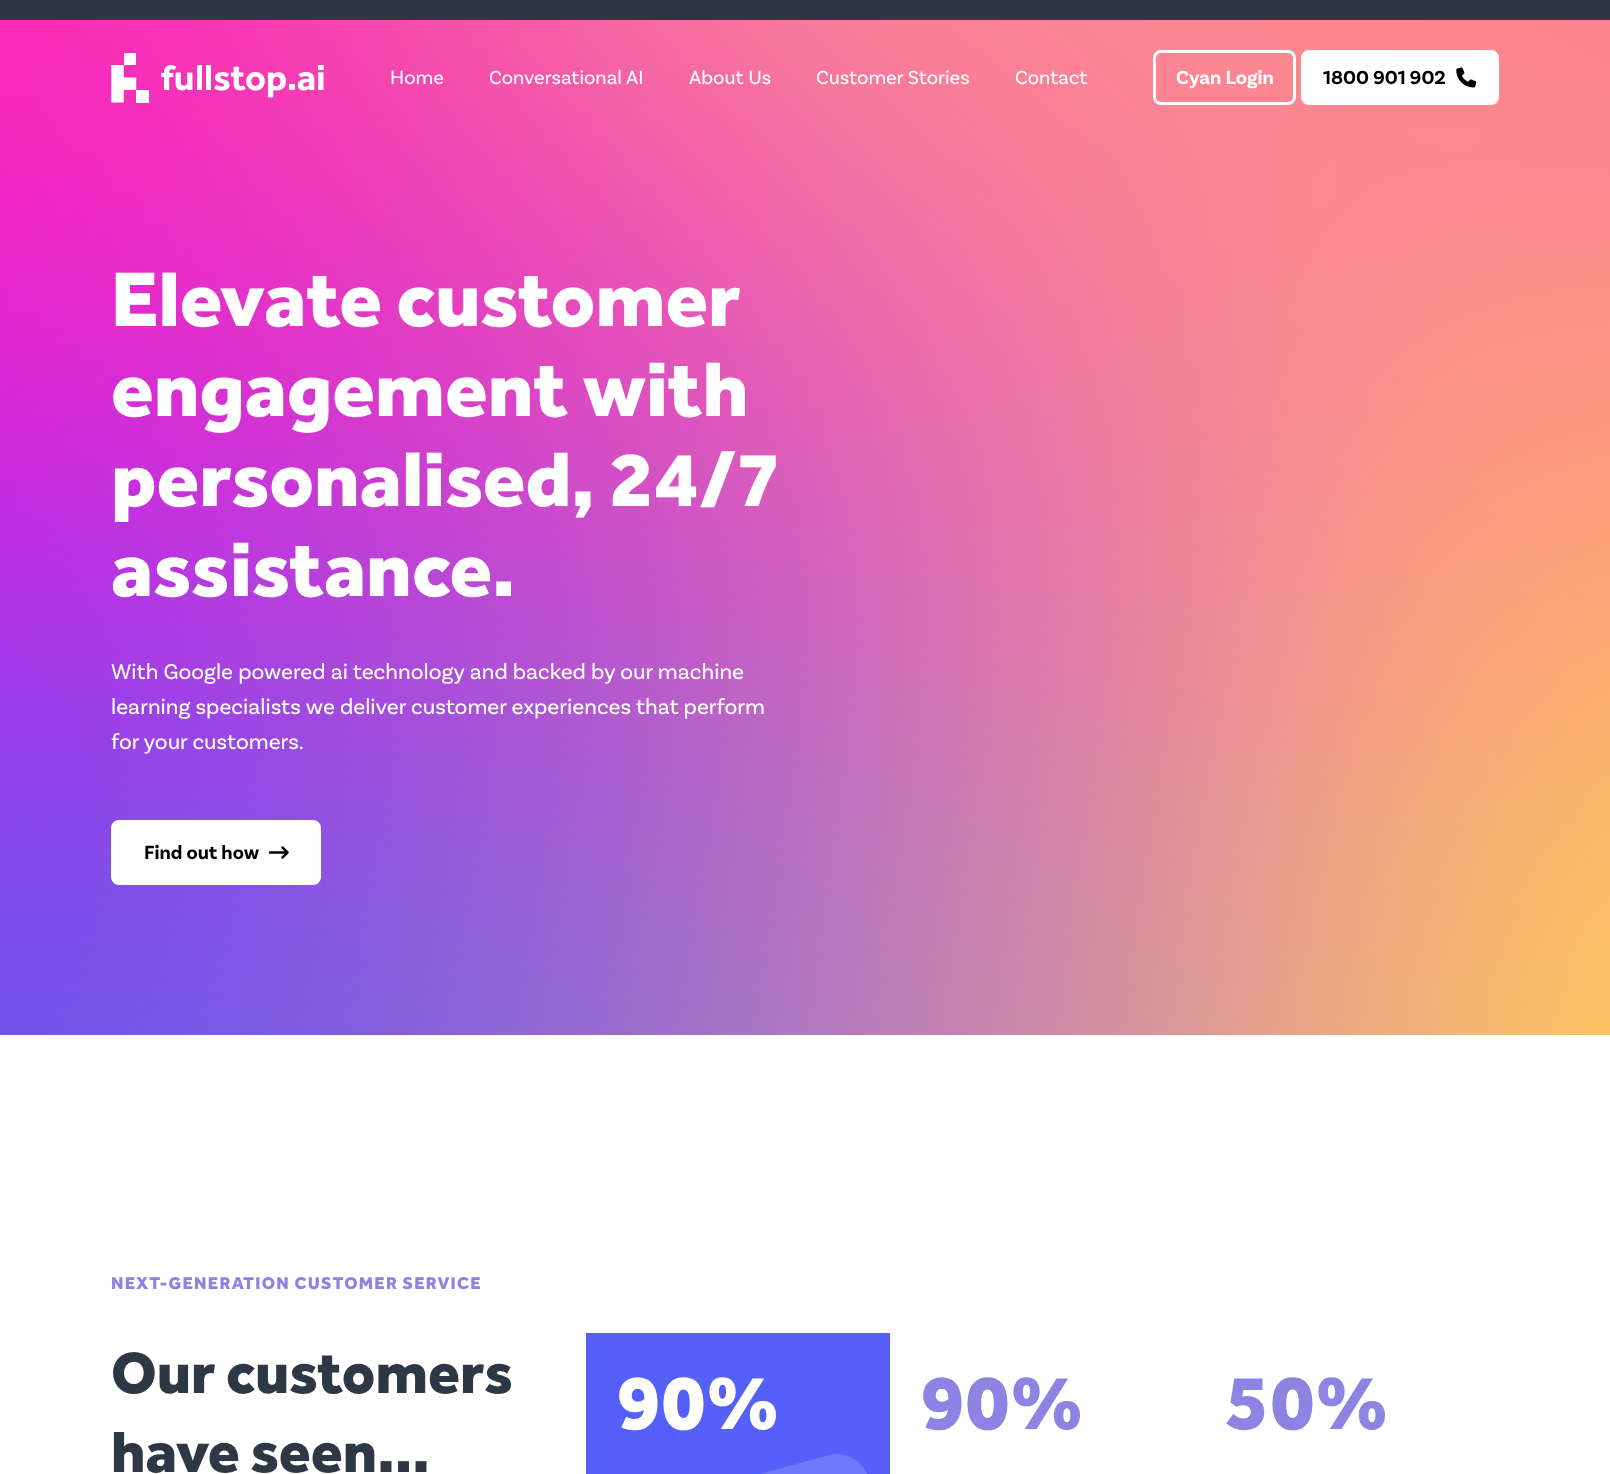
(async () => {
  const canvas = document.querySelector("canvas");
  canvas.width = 1610;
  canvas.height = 1474;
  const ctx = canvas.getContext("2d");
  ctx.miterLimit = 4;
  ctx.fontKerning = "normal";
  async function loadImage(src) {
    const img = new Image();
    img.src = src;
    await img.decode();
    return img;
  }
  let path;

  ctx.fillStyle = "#ffffff";
  ctx.fillRect(0, 0, 1610, 1474);
  ctx.fillStyle = "#2e3844";
  ctx.fillRect(0, 0, 1610, 20);
  ctx.drawImage(await loadImage("img/3.png"), 0, 20, 1610, 1015);
  ctx.drawImage(await loadImage("img/1.png"), 111, 53, 213, 50);
  ctx.beginPath();
  ctx.roundRect(1154.5, 51.5, 140, 52, 6.5);
  ctx.strokeStyle = "#ffffff";
  ctx.lineWidth = 3;
  ctx.stroke();
  ctx.fillStyle = "#ffffff";
  ctx.beginPath();
  ctx.roundRect(1302.5, 51.5, 195, 52, 6.5);
  ctx.fill();
  ctx.stroke();
  ctx.drawImage(await loadImage("img/2.png"), 1456, 67, 21, 21);
  ctx.beginPath();
  ctx.roundRect(112.5, 821.5, 207, 62, 6.5);
  ctx.fill();
  ctx.stroke();
  ctx.drawImage(await loadImage("img/4.png"), 268, 846, 21, 13);
  ctx.fillStyle = "#5460f9";
  ctx.fillRect(586, 1333, 304, 141);
  ctx.fillStyle = "rgba(255, 255, 255, 0.16)";
  path = new Path2D("M701 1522C697 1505 707 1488 724 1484L829 1455C846 1451 863 1461 868 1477L916 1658C921 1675 911 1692 894 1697L788 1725C772 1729 754 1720 750 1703ZM810 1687C812 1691 816 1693 820 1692L850 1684C854 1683 857 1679 856 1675C855 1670 850 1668 846 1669L816 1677C812 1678 809 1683 810 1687ZM837 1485L732 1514L772 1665L878 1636Z");
  ctx.fill(path);
  ctx.font = "20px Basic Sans";
  ctx.fillStyle = "#ffffff";
  for (const [text, x, y] of [
    ["Home", 390, 84],
    ["Conversational AI", 489, 84],
    ["About Us", 689, 84],
    ["Customer Stories", 816, 84],
    ["Contact", 1015, 84],
  ]) {
    ctx.fillText(text, x, y);
  }
  ctx.font = "bold 20px Basic Sans";
  ctx.fillText("Cyan Login", 1176, 84);
  ctx.fillStyle = "#000000";
  ctx.fillText("1800 901 902", 1323, 84);
  ctx.font = "900 80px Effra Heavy";
  ctx.fillStyle = "#ffffff";
  for (const [text, x, y] of [
    ["Elevate customer", 111, 326],
    ["engagement with", 111, 416],
    ["personalised, 24/7", 111, 506],
    ["assistance.", 111, 596],
  ]) {
    ctx.fillText(text, x, y);
  }
  ctx.font = "22.5px Basic Sans";
  for (const [text, x, y] of [
    ["With Google powered ai technology and backed by our machine", 111, 679],
    ["learning specialists we deliver customer experiences that perform", 111, 714],
    ["for your customers.", 111, 749],
  ]) {
    ctx.fillText(text, x, y);
  }
  ctx.font = "bold 20px Basic Sans";
  ctx.fillStyle = "#000000";
  ctx.fillText("Find out how", 144, 859);
  ctx.letterSpacing = "1.25px";
  ctx.font = "900 17.5px Effra Heavy";
  ctx.fillStyle = "#8e83e3";
  ctx.fillText("NEXT-GENERATION CUSTOMER SERVICE", 111, 1289);
  ctx.letterSpacing = "0px";
  ctx.font = "900 60px Effra Heavy";
  ctx.fillStyle = "#2e3844";
  ctx.fillText("Our customers", 111, 1393);
  ctx.fillText("have seen...", 111, 1472);
  ctx.font = "900 80px Effra Heavy";
  ctx.fillStyle = "#ffffff";
  ctx.fillText("90%", 616, 1429);
  ctx.fillStyle = "#8e83e3";
  ctx.fillText("90%", 920, 1429);
  ctx.fillText("50%", 1225, 1429);
})();
